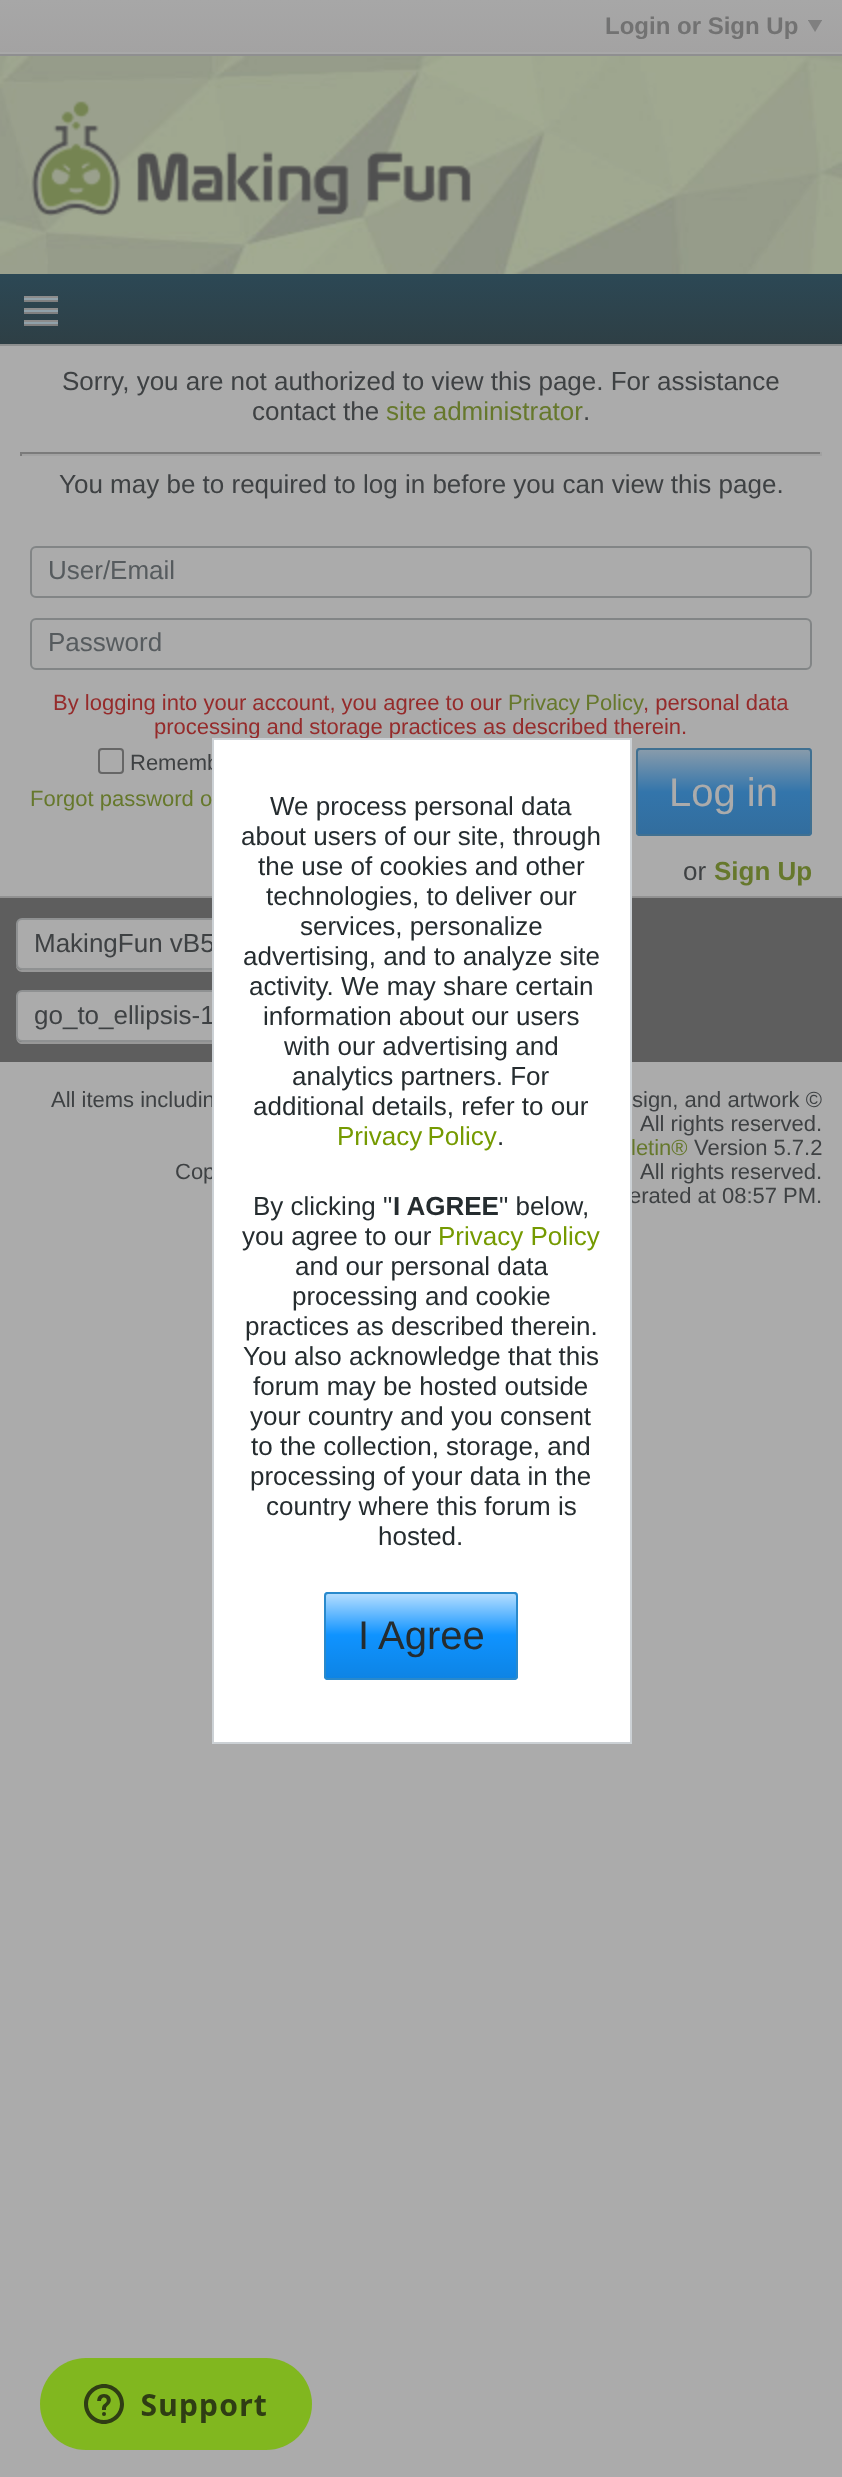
(async () => {
  const canvas = document.querySelector("canvas");
  canvas.width = 842;
  canvas.height = 2477;
  const ctx = canvas.getContext("2d");
  ctx.miterLimit = 4;
  ctx.fontKerning = "normal";
  async function loadImage(src) {
    const img = new Image();
    img.src = src;
    await img.decode();
    return img;
  }
  let gradient, path;

  ctx.fillStyle = "#ababab";
  ctx.fillRect(0, 0, 842, 2477);
  gradient = ctx.createLinearGradient(421, 0, 421, 56);
  gradient.addColorStop(0, "#a7a7a7");
  gradient.addColorStop(1, "#a3a2a2");
  ctx.fillStyle = gradient;
  ctx.fillRect(0, 0, 842, 52);
  ctx.drawImage(await loadImage("img/1.png"), 808, 20, 14, 12);
  ctx.fillStyle = "#a8a8a8";
  ctx.fillRect(0, 52, 842, 2);
  ctx.fillStyle = "#8f8f90";
  ctx.fillRect(0, 54, 842, 2);
  ctx.drawImage(await loadImage("img/2.png"), 0, 56, 842, 218);
  ctx.drawImage(await loadImage("img/3.png"), 31, 101, 440, 115);
  gradient = ctx.createLinearGradient(421, 274, 421, 344);
  gradient.addColorStop(0, "#2c4855");
  gradient.addColorStop(1, "#2e3f45");
  ctx.fillStyle = gradient;
  ctx.fillRect(0, 274, 842, 70);
  ctx.fillStyle = "#8d8f8f";
  ctx.fillRect(0, 344, 842, 2);
  ctx.drawImage(await loadImage("img/4.png"), 24, 296, 34, 30);
  for (const [x, y, w, h, color] of [
    [20, 452, 802, 2, "#7b7b7b"],
    [820, 452, 2, 4, "#a2a2a2"],
    [20, 454, 802, 2, "#a2a2a2"],
    [20, 452, 2, 4, "#7b7b7b"],
  ]) {
    ctx.fillStyle = color;
    ctx.fillRect(x, y, w, h);
  }
  ctx.beginPath();
  ctx.roundRect(31, 547, 780, 50, 5);
  ctx.strokeStyle = "#828586";
  ctx.lineWidth = 2;
  ctx.stroke();
  ctx.beginPath();
  ctx.roundRect(31, 619, 780, 50, 5);
  ctx.stroke();
  ctx.beginPath();
  ctx.roundRect(99, 749, 24, 24, 3);
  ctx.strokeStyle = "#666666";
  ctx.stroke();
  ctx.fillStyle = "#3375ab";
  ctx.beginPath();
  ctx.roundRect(636, 748, 176, 88, 4);
  ctx.fill();
  gradient = ctx.createLinearGradient(724, 834, 724, 750);
  gradient.addColorStop(0, "rgba(43, 43, 43, 0.1)");
  gradient.addColorStop(0.5, "rgba(43, 43, 43, 0)");
  gradient.addColorStop(0.5, "rgba(171, 171, 171, 0)");
  gradient.addColorStop(1, "rgba(171, 171, 171, 0.7)");
  ctx.fillStyle = gradient;
  ctx.fillRect(636, 750, 176, 84);
  ctx.beginPath();
  ctx.roundRect(637, 749, 174, 86, 3);
  ctx.strokeStyle = "#407091";
  ctx.stroke();
  ctx.fillStyle = "#5e5e5e";
  ctx.fillRect(0, 898, 842, 164);
  ctx.fillStyle = "#919191";
  ctx.fillRect(0, 896, 842, 2);
  ctx.fillStyle = "#989898";
  path = new Path2D("M16 964V966C16 969 19 972 22 972H304C307 972 310 969 310 966V964C310 967 307 970 304 970H22C19 970 16 967 16 964Z");
  ctx.fill(path);
  ctx.fillStyle = "#ababab";
  ctx.beginPath();
  ctx.roundRect(17, 919, 292, 50, 5);
  ctx.fill();
  ctx.strokeStyle = "#8f9192";
  ctx.stroke();
  ctx.fillStyle = "#989898";
  path = new Path2D("M16 1036C16 1039 17 1043 21 1044H273C277 1043 278 1039 278 1036C278 1039 275 1042 272 1042H22C19 1042 16 1039 16 1036Z");
  ctx.fill(path);
  ctx.fillStyle = "#ababab";
  ctx.beginPath();
  ctx.roundRect(17, 991, 260, 50, 5);
  ctx.fill();
  ctx.stroke();
  ctx.drawImage(await loadImage("img/5.png"), 40, 2358, 272, 92);
  ctx.font = "bold 24px Liberation Sans";
  ctx.fillStyle = "#727272";
  ctx.fillText("Login or Sign Up", 605, 34);
  ctx.font = "26px Liberation Sans";
  ctx.fillStyle = "#3e4143";
  ctx.fillText("Sorry, you are not authorized to view this page. For assistance", 62, 390);
  ctx.fillText("contact the", 252, 420);
  ctx.wordSpacing = "-1px";
  ctx.fillStyle = "#66782c";
  ctx.fillText("site administrator", 386, 420);
  ctx.wordSpacing = "0px";
  ctx.fillStyle = "#3e4143";
  ctx.fillText(".", 583, 420);
  ctx.fillText("You may be to required to log in before you can view this page.", 59, 493);
  ctx.fillStyle = "#565b5e";
  ctx.fillText("User/Email", 48, 579);
  ctx.fillText("Password", 48, 651);
  ctx.font = "22px Liberation Sans";
  ctx.fillStyle = "#952b2b";
  ctx.fillText("By logging into your account, you agree to our", 53, 710);
  ctx.wordSpacing = "-1px";
  ctx.fillStyle = "#66782c";
  ctx.fillText("Privacy Policy", 508, 710);
  ctx.wordSpacing = "0px";
  ctx.fillStyle = "#952b2b";
  ctx.fillText(", personal data", 643, 710);
  ctx.fillText("processing and storage practices as described therein.", 154, 734);
  ctx.fillStyle = "#3e4143";
  ctx.fillText("Rememb", 130, 770);
  ctx.fillStyle = "#66782c";
  ctx.fillText("Forgot password o", 30, 806);
  ctx.font = "40px Liberation Sans";
  ctx.fillStyle = "#ababab";
  ctx.fillText("Log in", 669, 806);
  ctx.font = "26px Liberation Sans";
  ctx.fillStyle = "#3e4143";
  ctx.fillText("or", 683, 880);
  ctx.font = "bold 26px Liberation Sans";
  ctx.fillStyle = "#66782c";
  ctx.fillText("Sign Up", 714, 880);
  ctx.font = "26px Liberation Sans";
  ctx.fillStyle = "#3e4143";
  ctx.fillText("MakingFun vB5", 34, 952);
  ctx.fillText("go_to_ellipsis-1", 34, 1024);
  ctx.font = "22px Liberation Sans";
  for (const [text, x, y] of [
    ["All items includin", 51, 1107],
    ["sign, and artwork ©", 632, 1107],
    ["All rights reserved.", 640, 1131],
  ]) {
    ctx.fillText(text, x, y);
  }
  ctx.fillStyle = "#66782c";
  ctx.fillText("letin®", 631, 1155);
  ctx.fillStyle = "#3e4143";
  for (const [text, x, y] of [
    ["Version 5.7.2", 694, 1155],
    ["Cop", 175, 1179],
    ["All rights reserved.", 640, 1179],
    ["erated at 08:57 PM.", 629, 1203],
  ]) {
    ctx.fillText(text, x, y);
  }
  ctx.fillStyle = "#ffffff";
  ctx.beginPath();
  ctx.rect(213, 739, 418, 1004);
  ctx.fill();
  ctx.strokeStyle = "#ccd1d5";
  ctx.stroke();
  ctx.font = "26px Liberation Sans";
  ctx.fillStyle = "#252c2f";
  for (const [text, x, y] of [
    ["We process personal data", 270, 815],
    ["about users of our site, through", 241, 845],
    ["the use of cookies and other", 258, 875],
    ["technologies, to deliver our", 266, 905],
    ["services, personalize", 300, 935],
    ["advertising, and to analyze site", 243, 965],
    ["activity. We may share certain", 249, 995],
    ["information about our users", 263, 1025],
    ["with our advertising and", 284, 1055],
    ["analytics partners. For", 292, 1085],
    ["additional details, refer to our", 253, 1115],
  ]) {
    ctx.fillText(text, x, y);
  }
  ctx.wordSpacing = "-2px";
  ctx.fillStyle = "#759a01";
  ctx.fillText("Privacy Policy", 337, 1145);
  ctx.wordSpacing = "0px";
  ctx.fillStyle = "#252c2f";
  ctx.fillText(".", 497, 1145);
  ctx.fillText("By clicking \"", 253, 1215);
  ctx.font = "bold 26px Liberation Sans";
  ctx.fillText("I AGREE", 393, 1215);
  ctx.font = "26px Liberation Sans";
  ctx.fillText("\" below,", 499, 1215);
  ctx.fillText("you agree to our", 242, 1245);
  ctx.fillStyle = "#759a01";
  ctx.fillText("Privacy Policy", 438, 1245);
  ctx.fillStyle = "#252c2f";
  for (const [text, x, y] of [
    ["and our personal data", 295, 1275],
    ["processing and cookie", 292, 1305],
    ["practices as described therein.", 245, 1335],
    ["You also acknowledge that this", 243, 1365],
    ["forum may be hosted outside", 253, 1395],
    ["your country and you consent", 250, 1425],
    ["to the collection, storage, and", 251, 1455],
    ["processing of your data in the", 250, 1485],
    ["country where this forum is", 266, 1515],
    ["hosted.", 378, 1545],
  ]) {
    ctx.fillText(text, x, y);
  }
  ctx.fillStyle = "#0f93ff";
  ctx.beginPath();
  ctx.roundRect(324, 1592, 194, 88, 4);
  ctx.fill();
  gradient = ctx.createLinearGradient(421, 1677, 421, 1593);
  gradient.addColorStop(0, "rgba(0, 0, 0, 0.1)");
  gradient.addColorStop(0.5, "rgba(0, 0, 0, 0)");
  gradient.addColorStop(0.5, "rgba(255, 255, 255, 0)");
  gradient.addColorStop(1, "rgba(255, 255, 255, 0.7)");
  ctx.fillStyle = gradient;
  ctx.fillRect(324, 1594, 194, 84);
  ctx.beginPath();
  ctx.roundRect(325, 1593, 192, 86, 3);
  ctx.strokeStyle = "#2989cc";
  ctx.stroke();
  ctx.font = "40px Liberation Sans";
  ctx.fillStyle = "#252c2f";
  ctx.fillText("I Agree", 358, 1649);
})();
